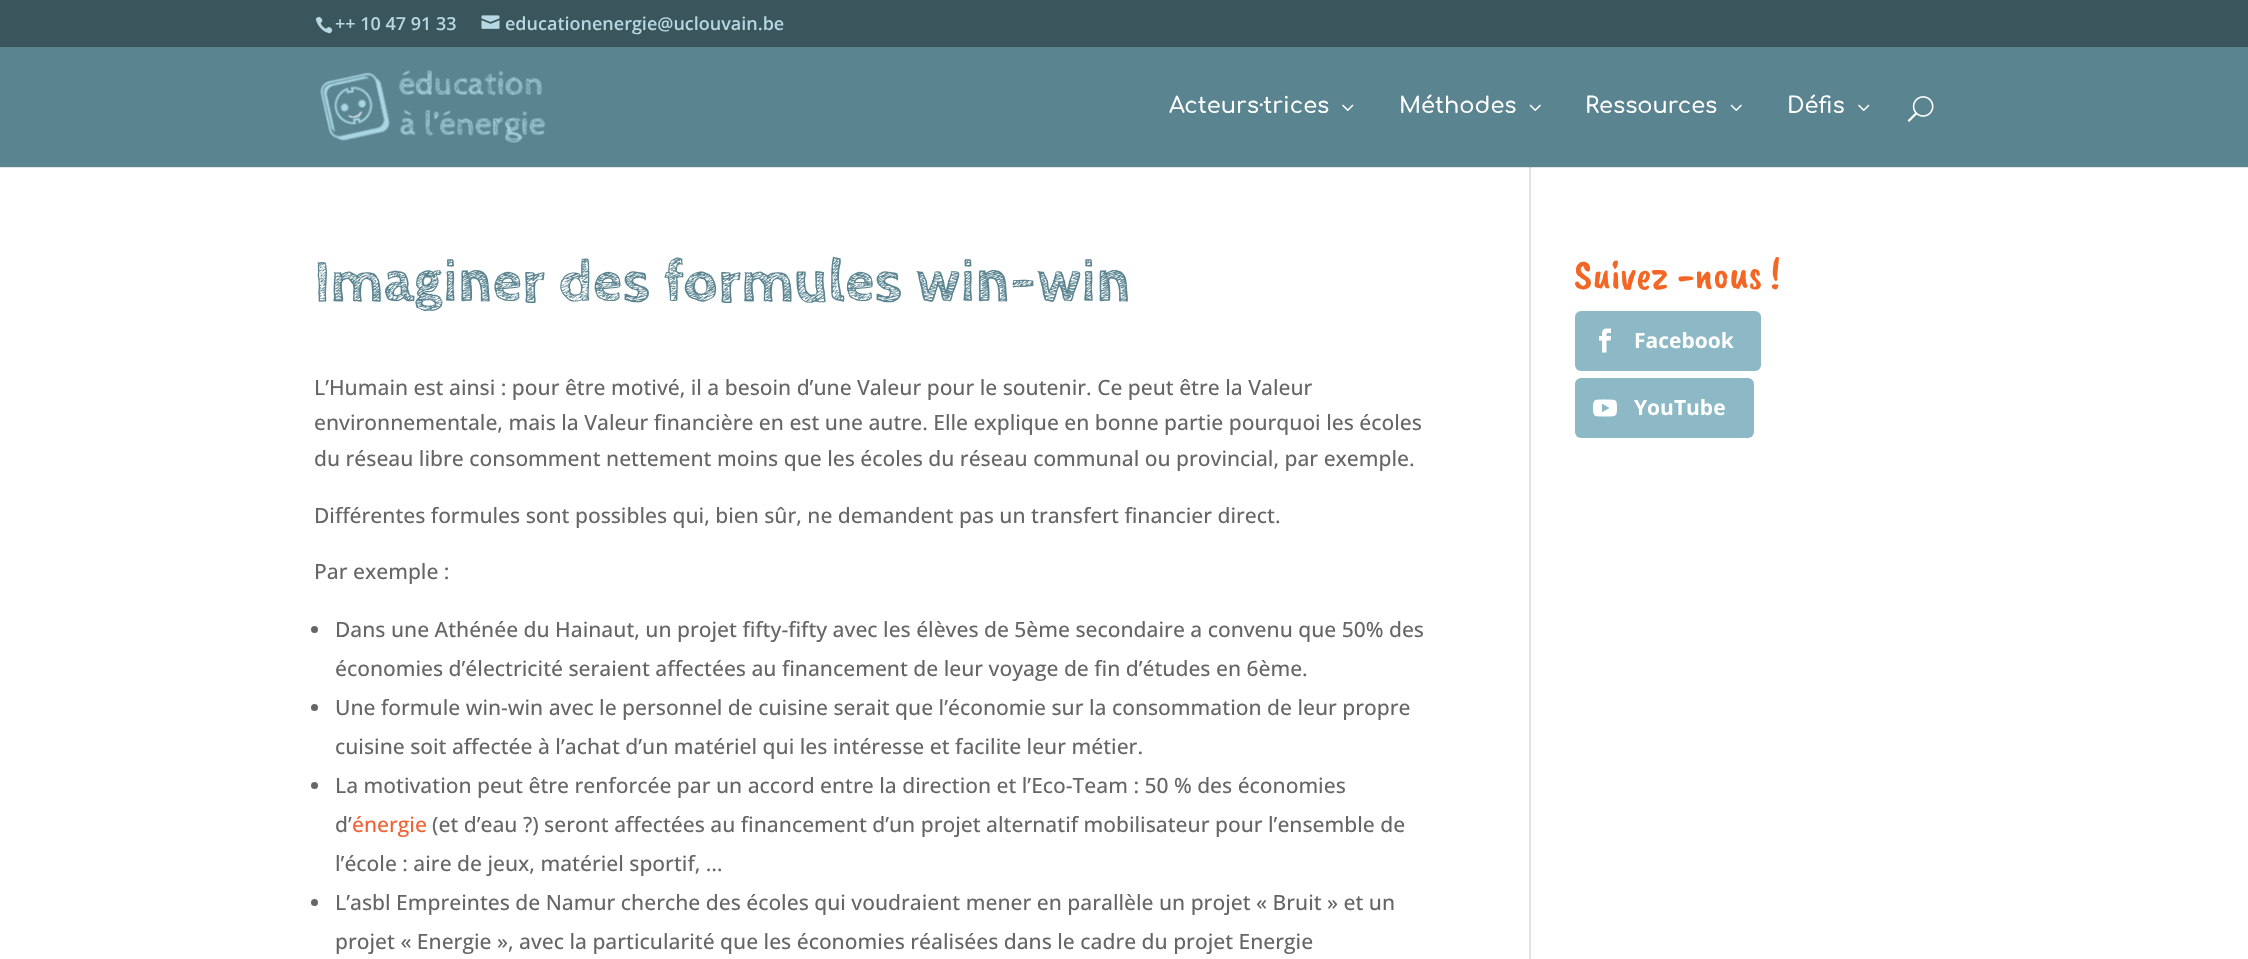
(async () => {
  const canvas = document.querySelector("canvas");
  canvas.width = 2248;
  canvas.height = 959;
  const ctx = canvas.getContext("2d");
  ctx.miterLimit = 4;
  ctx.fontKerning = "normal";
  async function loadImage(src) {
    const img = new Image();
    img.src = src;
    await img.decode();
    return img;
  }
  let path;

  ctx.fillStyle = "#ffffff";
  ctx.fillRect(0, 0, 2248, 959);
  ctx.fillStyle = "#3a555c";
  ctx.fillRect(0, 0, 2248, 47);
  ctx.drawImage(await loadImage("img/1.png"), 315, 16, 18, 18);
  ctx.drawImage(await loadImage("img/2.png"), 481, 15, 19, 14);
  ctx.fillStyle = "#e2e2e2";
  ctx.fillRect(1529, 167, 2, 792);
  ctx.fillStyle = "rgba(0, 0, 0, 0.1)";
  path = new Path2D("M0 166V168H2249V48H2248V166Z");
  ctx.fill(path);
  ctx.fillStyle = "#5a8490";
  ctx.fillRect(0, 47, 2248, 120);
  ctx.drawImage(await loadImage("img/3.png"), 320, 70, 225, 73);
  ctx.drawImage(await loadImage("img/4.png"), 1342, 104, 12, 7);
  ctx.drawImage(await loadImage("img/5.png"), 1529, 104, 12, 7);
  ctx.drawImage(await loadImage("img/5.png"), 1730, 104, 12, 7);
  ctx.drawImage(await loadImage("img/4.png"), 1858, 104, 12, 7);
  ctx.drawImage(await loadImage("img/6.png"), 1907, 96, 27, 26);
  ctx.fillStyle = "#666666";
  ctx.beginPath();
  ctx.arc(314.5, 629.5, 3.5, 0, Math.PI * 2);
  ctx.fill();
  ctx.beginPath();
  ctx.arc(314.5, 707.5, 3.5, 0, Math.PI * 2);
  ctx.fill();
  ctx.beginPath();
  ctx.arc(314.5, 785.5, 3.5, 0, Math.PI * 2);
  ctx.fill();
  ctx.beginPath();
  ctx.arc(314.5, 902.5, 3.5, 0, Math.PI * 2);
  ctx.fill();
  ctx.fillStyle = "#8db8c6";
  ctx.beginPath();
  ctx.roundRect(1575, 311, 186, 60, 6);
  ctx.fill();
  ctx.drawImage(await loadImage("img/7.png"), 1599, 328, 12, 25);
  ctx.beginPath();
  ctx.roundRect(1575, 378, 179, 60, 6);
  ctx.fill();
  ctx.drawImage(await loadImage("img/8.png"), 1593, 399, 24, 18);
  ctx.font = "600 18px Open Sans";
  ctx.fillStyle = "#b6d8e3";
  ctx.fillText("++ 10 47 91 33", 335, 30);
  ctx.fillText("educationenergie@uclouvain.be", 505, 30);
  ctx.font = "600 22.5px Comfortaa";
  ctx.fillStyle = "#ffffff";
  for (const [text, x, y] of [
    ["Acteurs·trices", 1169, 113],
    ["Méthodes", 1399, 113],
    ["Ressources", 1585, 113],
    ["Défis", 1787, 113],
  ]) {
    ctx.fillText(text, x, y);
  }
  ctx.font = "bold 60px Cabin Sketch";
  ctx.fillStyle = "#5a8490";
  ctx.fillText("Imaginer des formules win-win", 314, 300);
  ctx.font = "500 21px Open Sans";
  ctx.fillStyle = "#666666";
  for (const [text, x, y] of [
    ["L’Humain est ainsi : pour être motivé, il a besoin d’une Valeur pour le soutenir. Ce peut être la Valeur", 314, 395],
    ["environnementale, mais la Valeur financière en est une autre. Elle explique en bonne partie pourquoi les écoles", 314, 430],
    ["du réseau libre consomment nettement moins que les écoles du réseau communal ou provincial, par exemple.", 314, 466],
    ["Différentes formules sont possibles qui, bien sûr, ne demandent pas un transfert financier direct.", 314, 523],
    ["Par exemple :", 314, 579],
    ["Dans une Athénée du Hainaut, un projet fifty-fifty avec les élèves de 5ème secondaire a convenu que 50% des", 335, 637],
    ["économies d’électricité seraient affectées au financement de leur voyage de fin d’études en 6ème.", 335, 676],
    ["Une formule win-win avec le personnel de cuisine serait que l’économie sur la consommation de leur propre", 335, 715],
    ["cuisine soit affectée à l’achat d’un matériel qui les intéresse et facilite leur métier.", 335, 754],
    ["La motivation peut être renforcée par un accord entre la direction et l’Eco-Team : 50 % des économies", 335, 793],
    ["d’", 335, 832],
  ]) {
    ctx.fillText(text, x, y);
  }
  ctx.fillStyle = "#f06233";
  ctx.fillText("énergie", 352, 832);
  ctx.fillStyle = "#666666";
  for (const [text, x, y] of [
    ["(et d’eau ?) seront affectées au financement d’un projet alternatif mobilisateur pour l’ensemble de", 432, 832],
    ["l’école : aire de jeux, matériel sportif, …", 335, 871],
    ["L’asbl Empreintes de Namur cherche des écoles qui voudraient mener en parallèle un projet « Bruit » et un", 335, 910],
    ["projet « Energie », avec la particularité que les économies réalisées dans le cadre du projet Energie", 335, 949],
  ]) {
    ctx.fillText(text, x, y);
  }
  ctx.font = "42px Caveat Brush";
  ctx.fillStyle = "#f46624";
  ctx.fillText("Suivez -nous !", 1574, 288);
  ctx.font = "bold 21px Open Sans";
  ctx.fillStyle = "#ffffff";
  ctx.fillText("Facebook", 1634, 348);
  ctx.fillText("YouTube", 1634, 415);
})();
